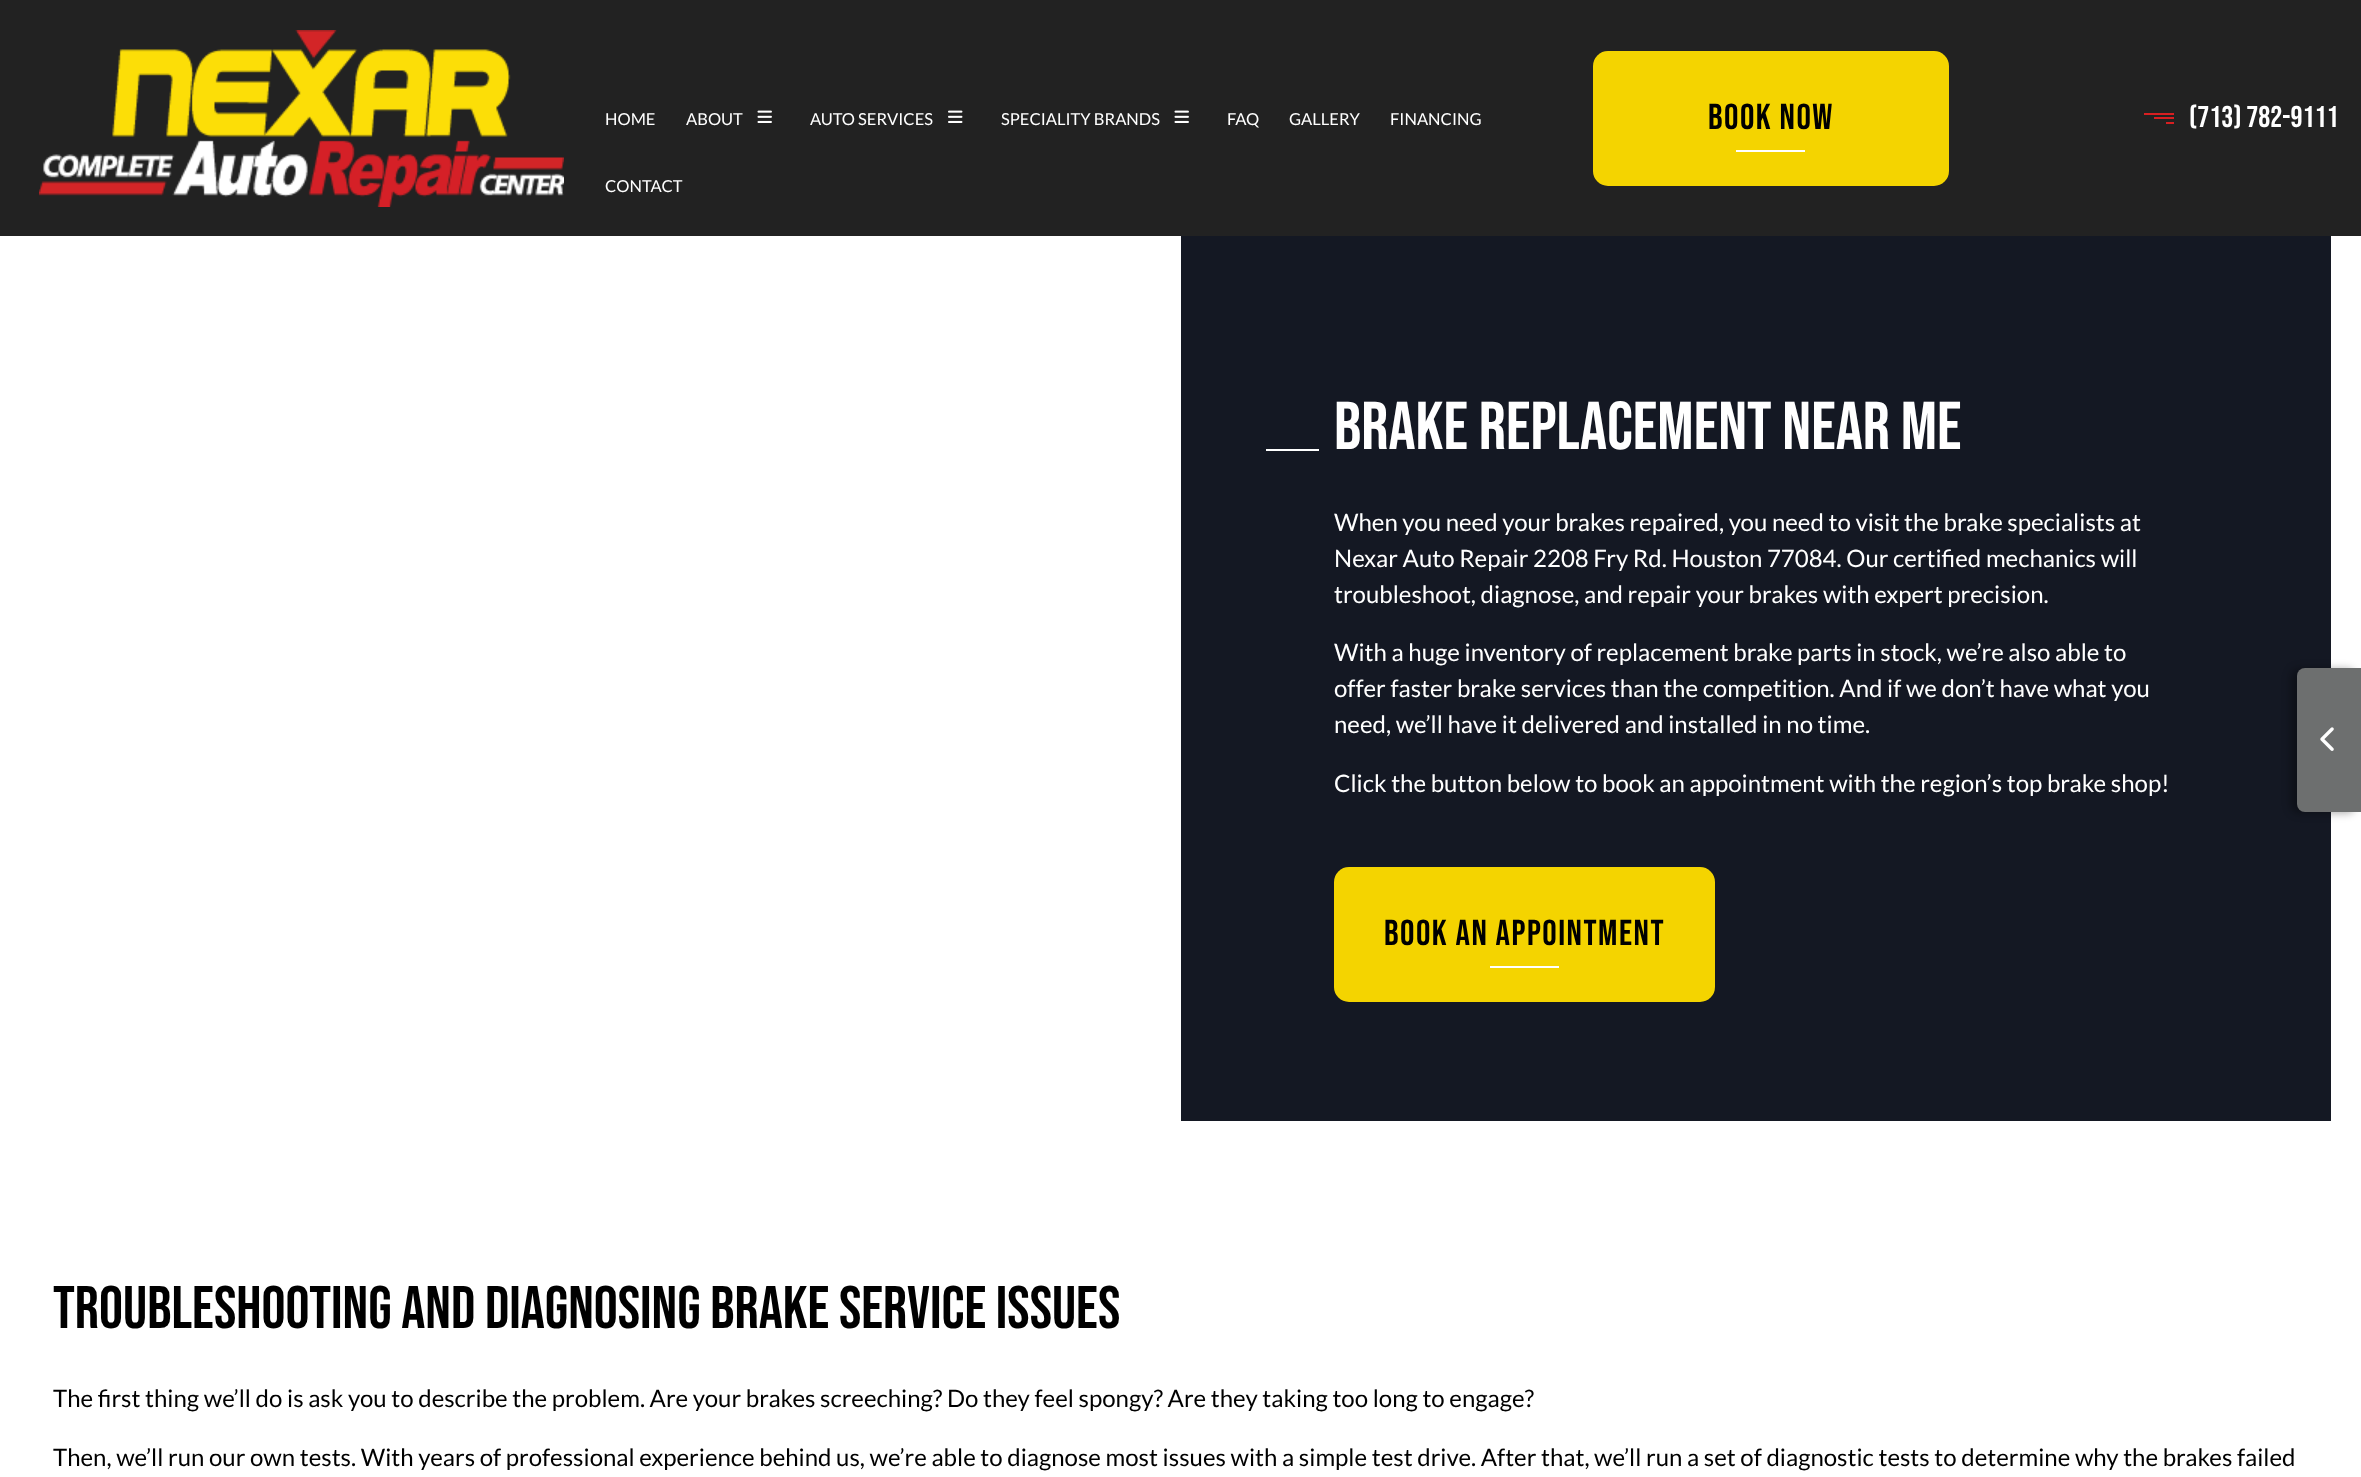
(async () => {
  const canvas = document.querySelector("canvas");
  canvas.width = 2361;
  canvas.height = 1477;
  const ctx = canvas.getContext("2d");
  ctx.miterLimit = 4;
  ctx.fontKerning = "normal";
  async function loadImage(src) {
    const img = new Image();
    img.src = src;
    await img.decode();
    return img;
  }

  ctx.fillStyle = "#ffffff";
  ctx.fillRect(0, 0, 2361, 1477);
  ctx.fillStyle = "#222222";
  ctx.fillRect(0, 0, 2361, 236);
  ctx.drawImage(await loadImage("img/1.png"), 39, 30, 525, 177);
  ctx.drawImage(await loadImage("img/2.png"), 757, 110, 15, 13);
  ctx.drawImage(await loadImage("img/3.png"), 948, 110, 15, 13);
  ctx.drawImage(await loadImage("img/2.png"), 1174, 110, 15, 13);
  ctx.fillStyle = "#f4d400";
  ctx.beginPath();
  ctx.roundRect(1593, 51, 356, 135, 15);
  ctx.fill();
  for (const [x, y, w, h, color] of [
    [1736, 150, 69, 2, "#ffffff"],
    [2144, 113, 30, 2, "#d81f21"],
    [2154, 117, 20, 2, "#d81f21"],
    [2166, 122, 8, 2, "#d81f21"],
    [1181, 236, 1150, 885, "#141823"],
    [1266, 449, 53, 2, "#ffffff"],
  ]) {
    ctx.fillStyle = color;
    ctx.fillRect(x, y, w, h);
  }
  ctx.fillStyle = "#f4d400";
  ctx.beginPath();
  ctx.roundRect(1334, 867, 381, 135, 15);
  ctx.fill();
  ctx.fillStyle = "#ffffff";
  ctx.fillRect(1490, 966, 69, 2);
  ctx.fillStyle = "rgba(0, 0, 0, 0.34)";
  ctx.filter = "blur(4.5px)";
  ctx.beginPath();
  ctx.roundRect(2291, 669, 64, 144, 8);
  ctx.fill();
  ctx.filter = "none";
  ctx.fillStyle = "#6d6f6f";
  ctx.beginPath();
  ctx.roundRect(2297, 668, 64, 144, [8, 0, 0, 8]);
  ctx.fill();
  ctx.drawImage(await loadImage("img/4.png"), 2320, 727, 14, 24);
  ctx.font = "16.5px Lato";
  ctx.fillStyle = "#ffffff";
  for (const [text, x, y] of [
    ["HOME", 605, 125],
    ["ABOUT", 686, 125],
    ["AUTO SERVICES", 810, 125],
    ["SPECIALITY BRANDS", 1001, 125],
    ["FAQ", 1227, 125],
    ["GALLERY", 1289, 125],
    ["FINANCING", 1390, 125],
    ["CONTACT", 605, 192],
  ]) {
    ctx.fillText(text, x, y);
  }
  ctx.letterSpacing = "1.5px";
  ctx.font = "36px Bebas Neue";
  ctx.fillStyle = "#000000";
  ctx.fillText("Book Now", 1708, 129);
  ctx.letterSpacing = "0px";
  ctx.font = "30px Bebas Neue";
  ctx.fillStyle = "#ffffff";
  ctx.fillText("(713) 782-9111", 2189, 127);
  ctx.font = "67.5px Bebas Neue";
  ctx.fillText("Brake Replacement near me", 1334, 449);
  ctx.font = "24px Lato";
  for (const [text, x, y] of [
    ["When you need your brakes repaired, you need to visit the brake specialists at", 1334, 531],
    ["Nexar Auto Repair 2208 Fry Rd. Houston 77084. Our certified mechanics will", 1334, 567],
    ["troubleshoot, diagnose, and repair your brakes with expert precision.", 1334, 603],
    ["With a huge inventory of replacement brake parts in stock, we’re also able to", 1334, 661],
    ["offer faster brake services than the competition. And if we don’t have what you", 1334, 697],
    ["need, we’ll have it delivered and installed in no time.", 1334, 733],
    ["Click the button below to book an appointment with the region’s top brake shop!", 1334, 792],
  ]) {
    ctx.fillText(text, x, y);
  }
  ctx.letterSpacing = "1.5px";
  ctx.font = "36px Bebas Neue";
  ctx.fillStyle = "#000000";
  ctx.fillText("Book An Appointment", 1384, 945);
  ctx.letterSpacing = "0px";
  ctx.font = "60px Bebas Neue";
  ctx.fillText("Troubleshooting and Diagnosing Brake service Issues", 53, 1328);
  ctx.font = "24px Lato";
  ctx.fillText("The first thing we’ll do is ask you to describe the problem. Are your brakes screeching? Do they feel spongy? Are they taking too long to engage?", 53, 1407);
  ctx.fillText("Then, we’ll run our own tests. With years of professional experience behind us, we’re able to diagnose most issues with a simple test drive. After that, we’ll run a set of diagnostic tests to determine why the brakes failed", 53, 1466);
})();
